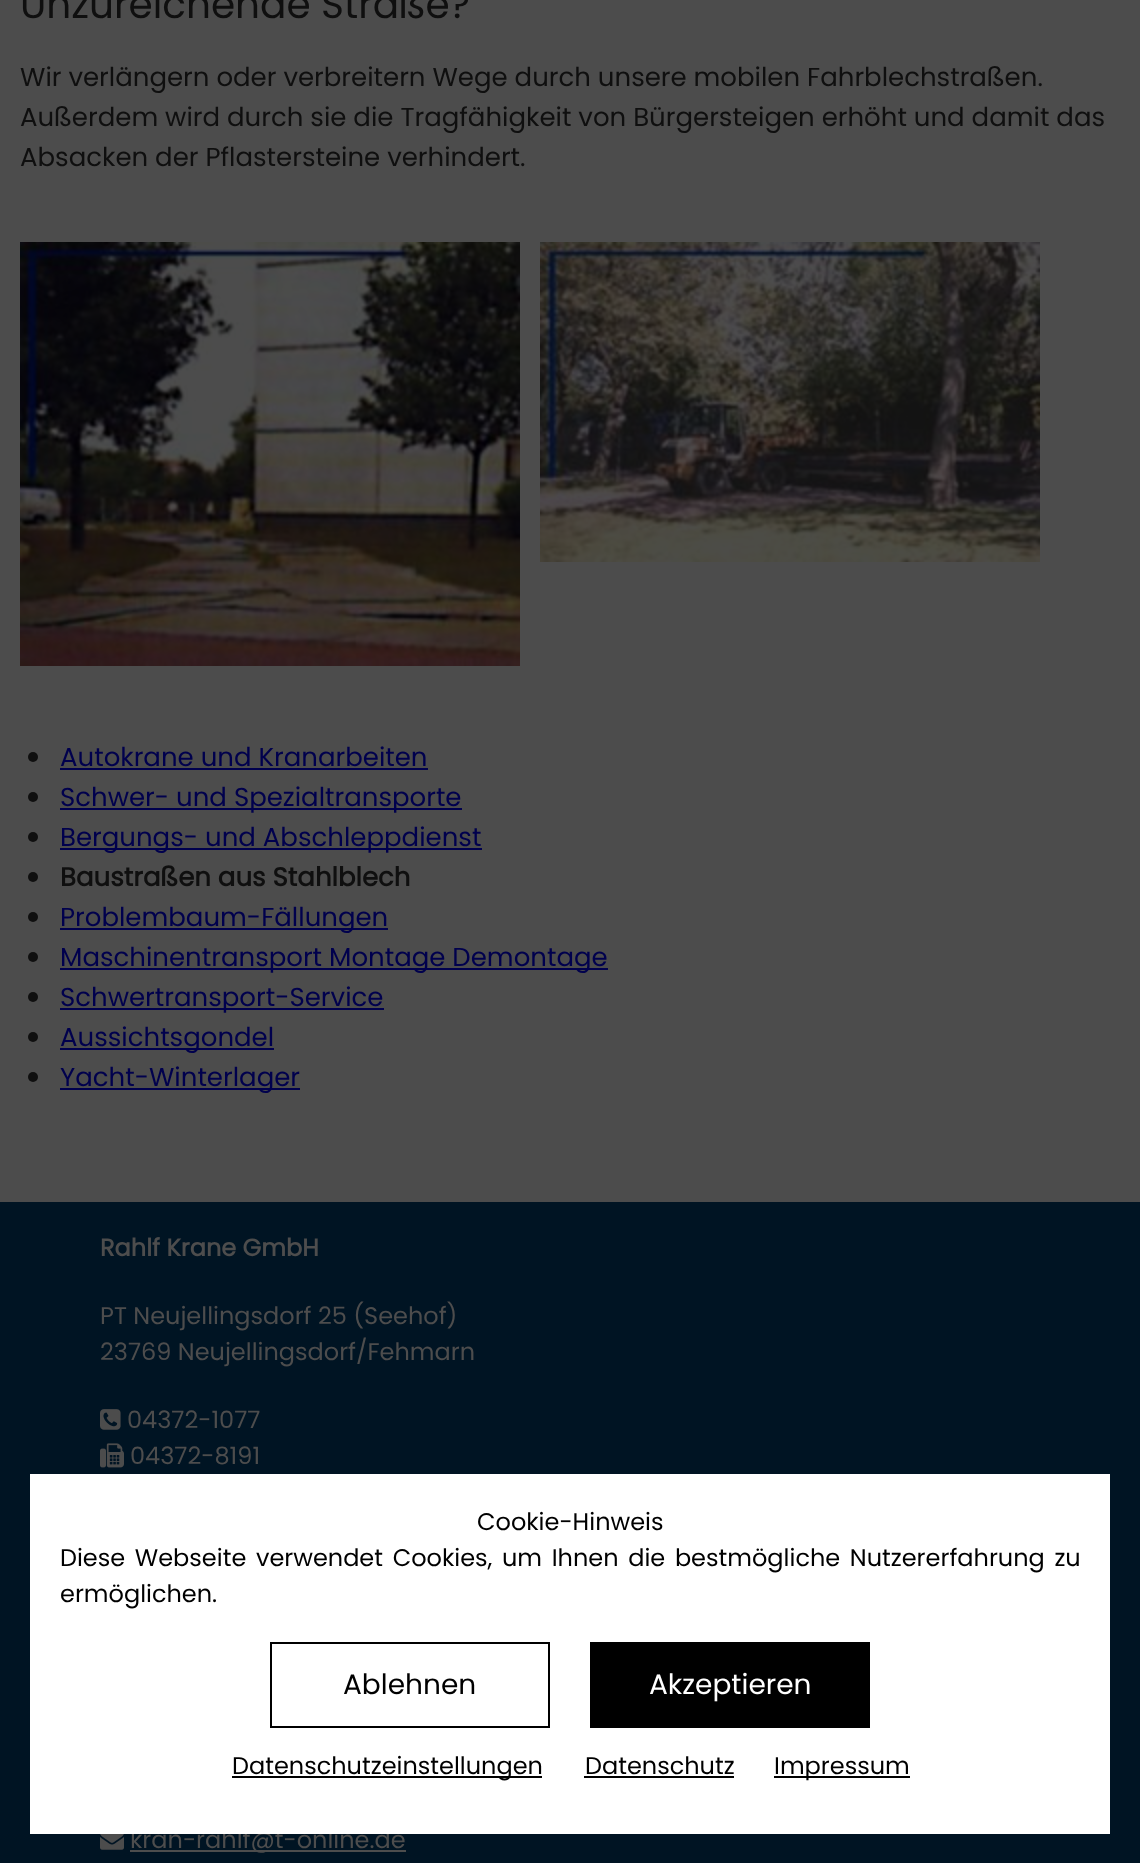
(async () => {
  const canvas = document.querySelector("canvas");
  canvas.width = 1140;
  canvas.height = 1863;
  const ctx = canvas.getContext("2d");
  ctx.miterLimit = 4;
  ctx.fontKerning = "normal";
  async function loadImage(src) {
    const img = new Image();
    img.src = src;
    await img.decode();
    return img;
  }

  ctx.fillStyle = "#001423";
  ctx.fillRect(0, 0, 1140, 1863);
  ctx.fillStyle = "#4c4c4c";
  ctx.fillRect(0, 0, 1140, 1202);
  ctx.drawImage(await loadImage("img/1.png"), 20, 242, 500, 424);
  ctx.drawImage(await loadImage("img/2.png"), 540, 242, 500, 320);
  ctx.fillStyle = "#0f0f0f";
  ctx.beginPath();
  ctx.arc(33, 757, 5, 0, Math.PI * 2);
  ctx.fill();
  ctx.fillStyle = "#00004d";
  ctx.fillRect(60, 768, 368, 2);
  ctx.fillStyle = "#0f0f0f";
  ctx.beginPath();
  ctx.arc(33, 797, 5, 0, Math.PI * 2);
  ctx.fill();
  ctx.fillStyle = "#00004d";
  ctx.fillRect(60, 808, 402, 2);
  ctx.fillStyle = "#0f0f0f";
  ctx.beginPath();
  ctx.arc(33, 837, 5, 0, Math.PI * 2);
  ctx.fill();
  ctx.fillStyle = "#00004d";
  ctx.fillRect(60, 848, 422, 2);
  ctx.fillStyle = "#0f0f0f";
  ctx.beginPath();
  ctx.arc(33, 877, 5, 0, Math.PI * 2);
  ctx.fill();
  ctx.beginPath();
  ctx.arc(33, 917, 5, 0, Math.PI * 2);
  ctx.fill();
  ctx.fillStyle = "#00004d";
  ctx.fillRect(60, 928, 328, 2);
  ctx.fillStyle = "#0f0f0f";
  ctx.beginPath();
  ctx.arc(33, 957, 5, 0, Math.PI * 2);
  ctx.fill();
  ctx.fillStyle = "#00004d";
  ctx.fillRect(60, 968, 548, 2);
  ctx.fillStyle = "#0f0f0f";
  ctx.beginPath();
  ctx.arc(33, 997, 5, 0, Math.PI * 2);
  ctx.fill();
  ctx.fillStyle = "#00004d";
  ctx.fillRect(60, 1008, 324, 2);
  ctx.fillStyle = "#0f0f0f";
  ctx.beginPath();
  ctx.arc(33, 1037, 5, 0, Math.PI * 2);
  ctx.fill();
  ctx.fillStyle = "#00004d";
  ctx.fillRect(60, 1048, 214, 2);
  ctx.fillStyle = "#0f0f0f";
  ctx.beginPath();
  ctx.arc(33, 1077, 5, 0, Math.PI * 2);
  ctx.fill();
  ctx.fillStyle = "#00004d";
  ctx.fillRect(60, 1088, 240, 2);
  ctx.drawImage(await loadImage("img/3.png"), 100, 1409, 21, 21);
  ctx.drawImage(await loadImage("img/4.png"), 100, 1443, 24, 25);
  ctx.drawImage(await loadImage("img/5.png"), 100, 1834, 24, 16);
  ctx.fillStyle = "#4d4d4d";
  ctx.fillRect(130, 1850, 276, 2);
  ctx.font = "39px Poppins";
  ctx.fillStyle = "#0f0f0f";
  ctx.fillText("Unzureichende Straße?", 20, 18);
  ctx.font = "26px Poppins";
  for (const [text, x, y] of [
    ["Wir verlängern oder verbreitern Wege durch unsere mobilen Fahrblechstraßen.", 20, 86],
    ["Außerdem wird durch sie die Tragfähigkeit von Bürgersteigen erhöht und damit das", 20, 126],
    ["Absacken der Pflastersteine verhindert.", 20, 166],
  ]) {
    ctx.fillText(text, x, y);
  }
  ctx.fillStyle = "#00004d";
  for (const [text, x, y] of [
    ["Autokrane und Kranarbeiten", 60, 766],
    ["Schwer- und Spezialtransporte", 60, 806],
    ["Bergungs- und Abschleppdienst", 60, 846],
  ]) {
    ctx.fillText(text, x, y);
  }
  ctx.font = "bold 26px Poppins";
  ctx.fillStyle = "#0f0f0f";
  ctx.fillText("Baustraßen aus Stahlblech", 60, 886);
  ctx.font = "26px Poppins";
  ctx.fillStyle = "#00004d";
  for (const [text, x, y] of [
    ["Problembaum-Fällungen", 60, 926],
    ["Maschinentransport Montage Demontage", 60, 966],
    ["Schwertransport-Service", 60, 1006],
    ["Aussichtsgondel", 60, 1046],
    ["Yacht-Winterlager", 60, 1086],
  ]) {
    ctx.fillText(text, x, y);
  }
  ctx.font = "bold 24px Poppins";
  ctx.fillStyle = "#4d4d4d";
  ctx.fillText("Rahlf Krane GmbH", 100, 1256);
  ctx.font = "24px Poppins";
  for (const [text, x, y] of [
    ["PT Neujellingsdorf 25 (Seehof)", 100, 1324],
    ["23769 Neujellingsdorf/Fehmarn", 100, 1360],
    ["04372-1077", 127, 1428],
    ["04372-8191", 130, 1464],
    ["kran-rahlf@t-online.de", 130, 1848],
  ]) {
    ctx.fillText(text, x, y);
  }
  ctx.fillStyle = "#ffffff";
  ctx.fillRect(30, 1474, 1080, 360);
  ctx.fillStyle = "#000000";
  ctx.fillText("Cookie-Hinweis", 477, 1530);
  ctx.wordSpacing = "3.25px";
  ctx.fillText("Diese Webseite verwendet Cookies, um Ihnen die bestmögliche Nutzererfahrung zu", 60, 1566);
  ctx.wordSpacing = "0px";
  ctx.fillText("ermöglichen.", 60, 1602);
  ctx.strokeStyle = "#000000";
  ctx.lineWidth = 2;
  ctx.strokeRect(271, 1643, 278, 84);
  ctx.font = "28px Poppins";
  ctx.fillText("Ablehnen", 343, 1694);
  ctx.fillRect(590, 1642, 280, 86);
  ctx.fillStyle = "#ffffff";
  ctx.fillText("Akzeptieren", 649, 1694);
  ctx.fillStyle = "#000000";
  ctx.fillRect(232, 1776, 310, 2);
  ctx.font = "24px Poppins";
  ctx.fillText("Datenschutzeinstellungen", 232, 1774);
  ctx.fillText("Datenschutz", 585, 1774);
  ctx.fillRect(584, 1776, 150, 2);
  ctx.fillRect(774, 1776, 136, 2);
  ctx.fillText("Impressum", 774, 1774);
})();
